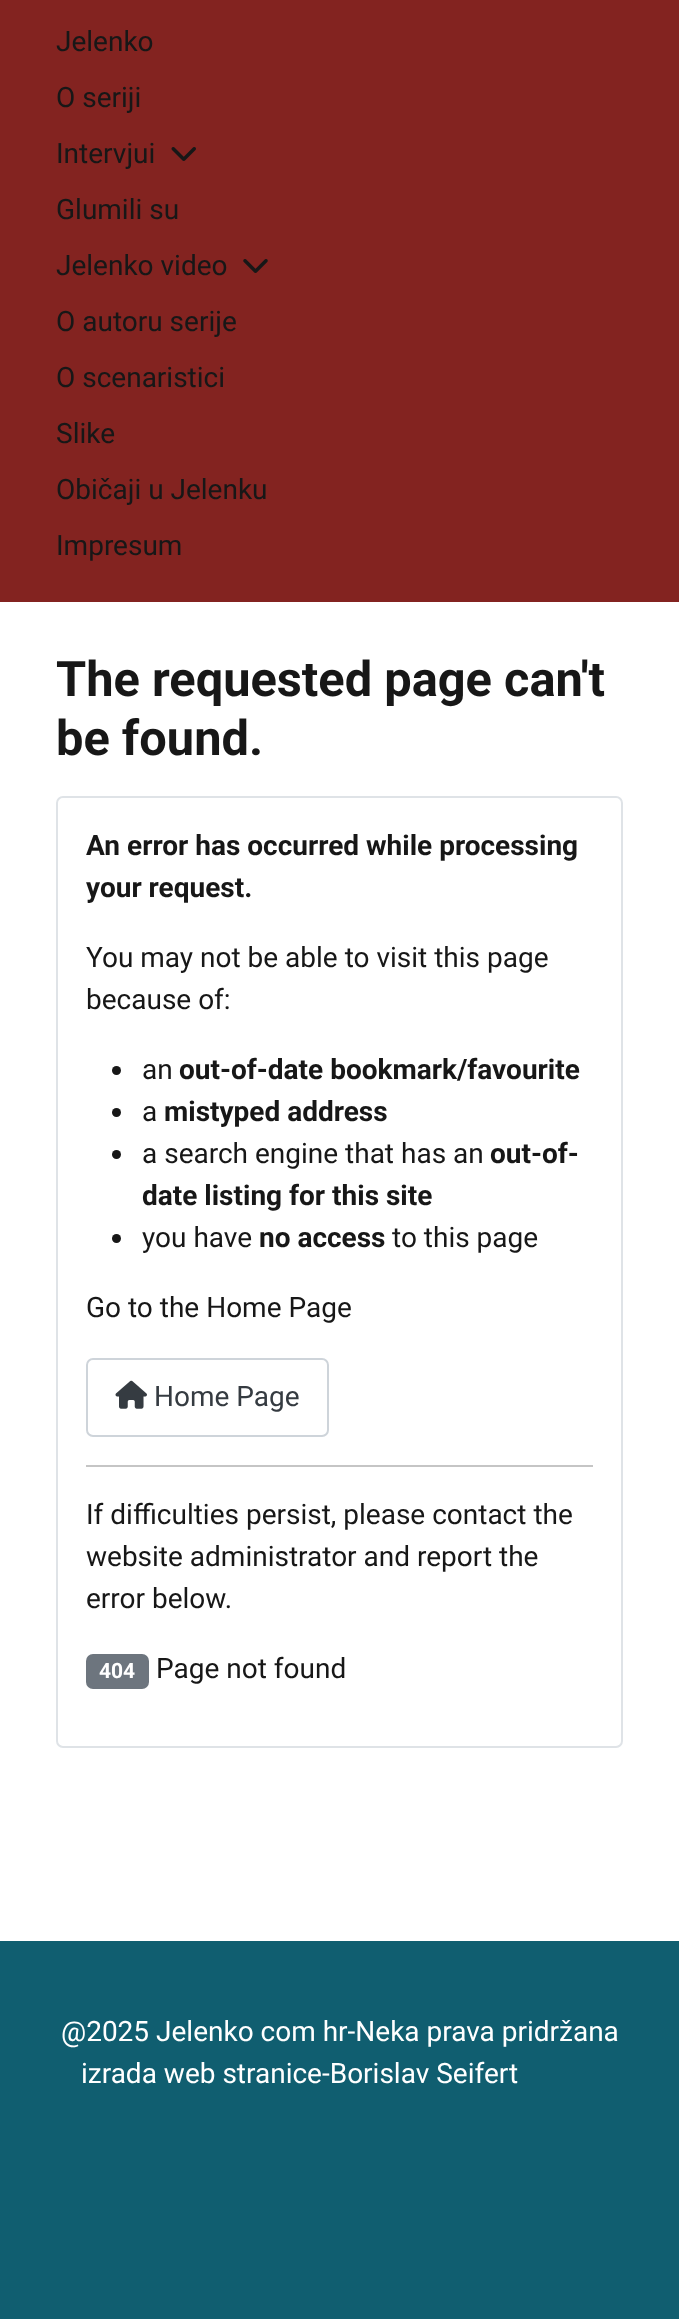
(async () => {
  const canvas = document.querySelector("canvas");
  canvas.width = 679;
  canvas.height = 2319;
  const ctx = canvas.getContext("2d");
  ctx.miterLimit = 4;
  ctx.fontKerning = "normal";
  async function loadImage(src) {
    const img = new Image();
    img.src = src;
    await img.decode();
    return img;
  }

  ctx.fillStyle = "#ffffff";
  ctx.fillRect(0, 0, 679, 2319);
  ctx.fillStyle = "#832320";
  ctx.fillRect(0, 0, 679, 602);
  ctx.drawImage(await loadImage("img/1.png"), 171, 147, 25, 14);
  ctx.drawImage(await loadImage("img/2.png"), 243, 259, 25, 14);
  ctx.beginPath();
  ctx.roundRect(57, 797, 565, 950, 6);
  ctx.strokeStyle = "#dfe3e7";
  ctx.lineWidth = 2;
  ctx.stroke();
  ctx.fillStyle = "#171717";
  ctx.beginPath();
  ctx.arc(116.5, 1070.5, 4.5, 0, Math.PI * 2);
  ctx.fill();
  ctx.beginPath();
  ctx.arc(116.5, 1112.5, 4.5, 0, Math.PI * 2);
  ctx.fill();
  ctx.beginPath();
  ctx.arc(116.5, 1154.5, 4.5, 0, Math.PI * 2);
  ctx.fill();
  ctx.beginPath();
  ctx.arc(116.5, 1238.5, 4.5, 0, Math.PI * 2);
  ctx.fill();
  ctx.beginPath();
  ctx.roundRect(87, 1359, 241, 77, 6);
  ctx.strokeStyle = "#ced4da";
  ctx.stroke();
  ctx.drawImage(await loadImage("img/3.png"), 115, 1380, 32, 29);
  ctx.fillStyle = "#c5c5c5";
  ctx.fillRect(86, 1465, 507, 2);
  ctx.fillStyle = "#6d757e";
  ctx.beginPath();
  ctx.roundRect(86, 1654, 63, 35, 7);
  ctx.fill();
  ctx.fillStyle = "#105e70";
  ctx.fillRect(0, 1941, 679, 378);
  ctx.font = "28px Roboto";
  ctx.fillStyle = "#171717";
  for (const [text, x, y] of [
    ["Jelenko", 56, 51],
    ["O seriji", 56, 107],
    ["Intervjui", 56, 163],
    ["Glumili su", 56, 219],
    ["Jelenko video", 56, 275],
    ["O autoru serije", 56, 331],
    ["O scenaristici", 56, 387],
    ["Slike", 56, 443],
    ["Običaji u Jelenku", 56, 499],
    ["Impresum", 56, 555],
  ]) {
    ctx.fillText(text, x, y);
  }
  ctx.font = "bold 48.75px Roboto";
  ctx.fillText("The requested page can't", 56, 696);
  ctx.fillText("be found.", 56, 755);
  ctx.font = "bold 28px Roboto";
  ctx.fillText("An error has occurred while processing", 86, 855);
  ctx.fillText("your request.", 86, 897);
  ctx.font = "28px Roboto";
  for (const [text, x, y] of [
    ["You may not be able to visit this page", 86, 967],
    ["because of:", 86, 1009],
    ["an", 142, 1079],
  ]) {
    ctx.fillText(text, x, y);
  }
  ctx.font = "bold 28px Roboto";
  ctx.fillText("out-of-date bookmark/favourite", 179, 1079);
  ctx.font = "28px Roboto";
  ctx.fillText("a", 142, 1121);
  ctx.font = "bold 28px Roboto";
  ctx.fillText("mistyped address", 164, 1121);
  ctx.font = "28px Roboto";
  ctx.fillText("a search engine that has an", 142, 1163);
  ctx.font = "bold 28px Roboto";
  ctx.fillText("out-of-", 490, 1163);
  ctx.fillText("date listing for this site", 142, 1205);
  ctx.font = "28px Roboto";
  ctx.fillText("you have", 142, 1247);
  ctx.font = "bold 28px Roboto";
  ctx.fillText("no access", 259, 1247);
  ctx.font = "28px Roboto";
  ctx.fillText("to this page", 392, 1247);
  ctx.fillText("Go to the Home Page", 86, 1317);
  ctx.fillStyle = "#353b41";
  ctx.fillText("Home Page", 154, 1406);
  ctx.fillStyle = "#171717";
  for (const [text, x, y] of [
    ["If difficulties persist, please contact the", 86, 1524],
    ["website administrator and report the", 86, 1566],
    ["error below.", 86, 1608],
  ]) {
    ctx.fillText(text, x, y);
  }
  ctx.font = "bold 21px Roboto";
  ctx.fillStyle = "#ffffff";
  ctx.fillText("404", 99, 1678);
  ctx.font = "28px Roboto";
  ctx.fillStyle = "#171717";
  ctx.fillText("Page not found", 156, 1678);
  ctx.fillStyle = "#ffffff";
  ctx.fillText("@2025 Jelenko com hr-Neka prava pridržana", 61, 2041);
  ctx.fillText("izrada web stranice-Borislav Seifert", 81, 2083);
})();
